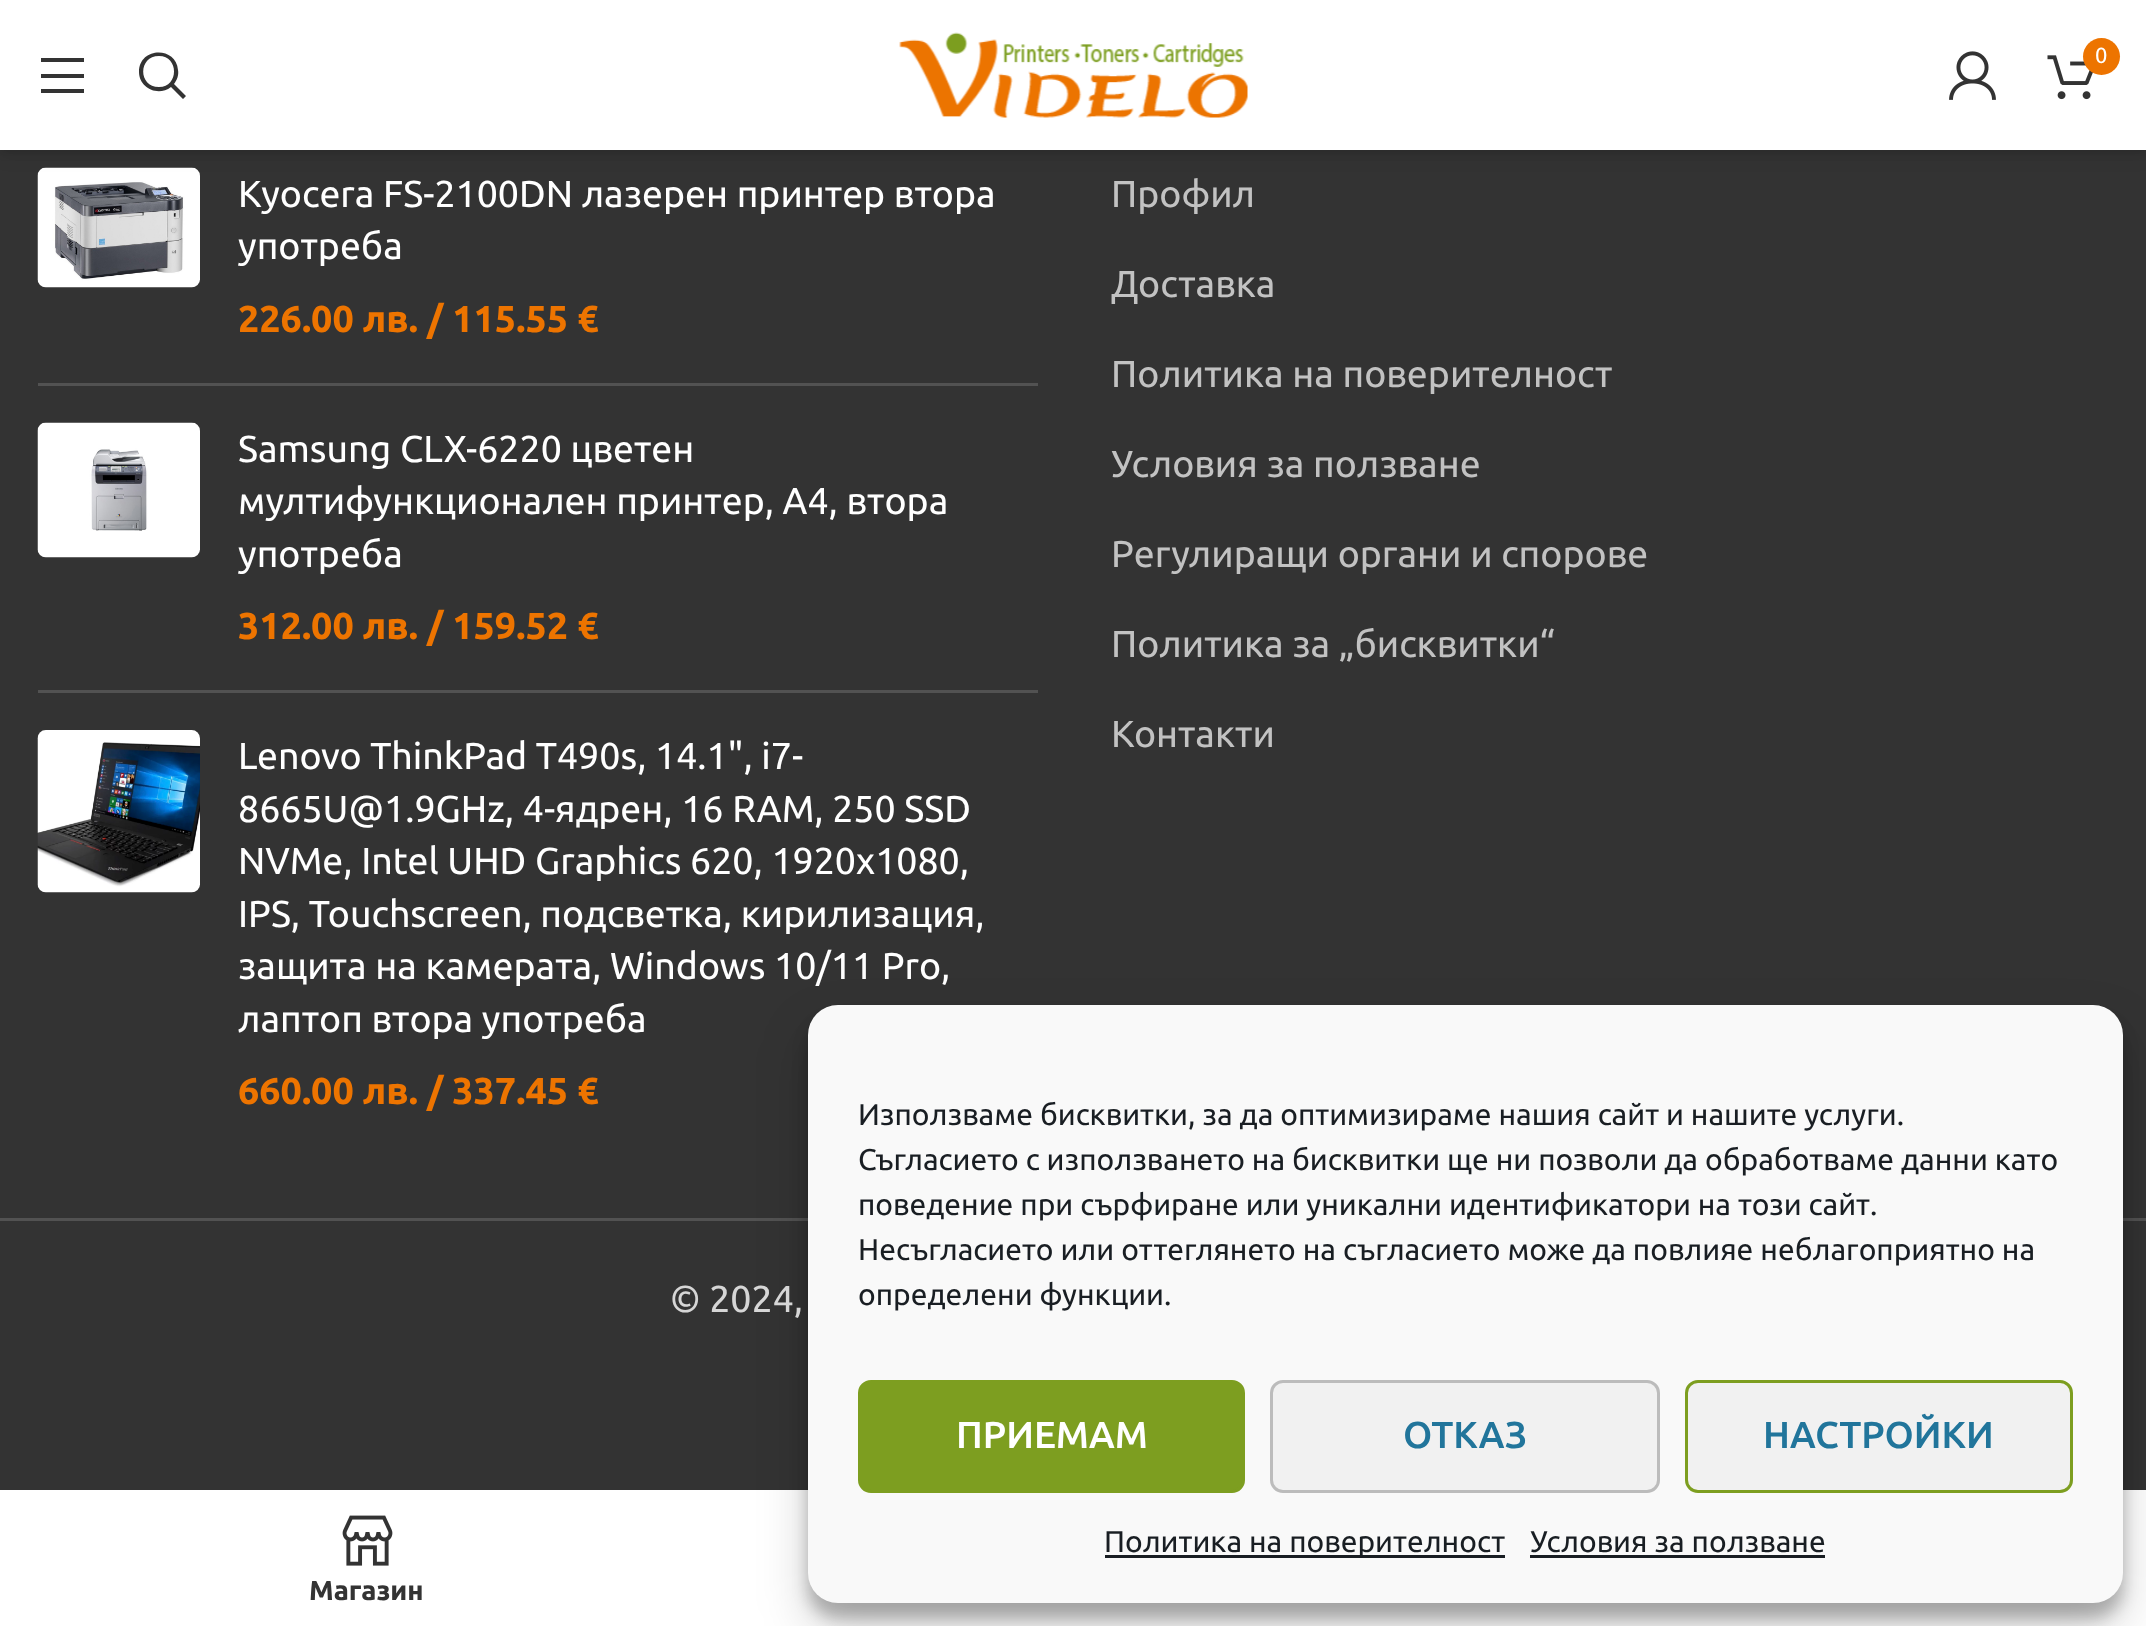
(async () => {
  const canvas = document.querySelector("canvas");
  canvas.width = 2146;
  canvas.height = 1626;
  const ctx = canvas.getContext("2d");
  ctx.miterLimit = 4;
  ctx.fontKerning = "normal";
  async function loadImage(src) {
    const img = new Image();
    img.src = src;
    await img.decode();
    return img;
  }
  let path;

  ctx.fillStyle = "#ffffff";
  ctx.fillRect(0, 0, 2146, 1626);
  ctx.fillStyle = "#333333";
  ctx.fillRect(0, 150, 2146, 1340);
  ctx.fillStyle = "rgba(0, 0, 0, 0.1)";
  ctx.filter = "blur(4px)";
  ctx.beginPath();
  ctx.rect(0, 3, 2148, 150);
  ctx.fill();
  ctx.filter = "none";
  ctx.drawImage(await loadImage("img/4.png"), 37, 167, 163, 121);
  ctx.filter = "blur(10px)";
  ctx.beginPath();
  ctx.rect(0, 3, 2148, 150);
  ctx.fill();
  ctx.filter = "none";
  ctx.fillStyle = "#ffffff";
  ctx.fillRect(0, 0, 2146, 150);
  ctx.fillStyle = "#333333";
  path = new Path2D("M41 62H84V58H41ZM41 78H84V74H41ZM41 93H84V89H41Z");
  ctx.fill(path);
  path = new Path2D("M139 72C139 88 158 97 171 87L183 99L186 96L174 84C177 80 179 75 178 70C176 46 139 47 139 72ZM159 87C138 87 138 56 159 56C179 56 179 87 159 87Z");
  ctx.fill(path);
  ctx.drawImage(await loadImage("img/1.png"), 899, 32, 349, 86);
  ctx.drawImage(await loadImage("img/2.png"), 1949, 51, 47, 49);
  ctx.drawImage(await loadImage("img/3.png"), 2047, 55, 46, 45);
  ctx.fillStyle = "#ed7400";
  ctx.beginPath();
  ctx.arc(2101.5, 56.5, 18.5, 0, Math.PI * 2);
  ctx.fill();
  ctx.fillStyle = "#525252";
  ctx.fillRect(38, 383, 1000, 3);
  ctx.fillRect(38, 690, 1000, 3);
  ctx.drawImage(await loadImage("img/5.png"), 37, 422, 163, 136);
  ctx.drawImage(await loadImage("img/6.png"), 37, 730, 163, 163);
  ctx.fillRect(0, 1218, 2146, 3);
  ctx.fillStyle = "rgba(0, 0, 0, 0.23)";
  ctx.filter = "blur(7.5px)";
  ctx.beginPath();
  ctx.roundRect(808, 1020, 1315, 598, 30);
  ctx.fill();
  ctx.filter = "none";
  ctx.fillStyle = "rgba(0, 0, 0, 0.19)";
  ctx.filter = "blur(25px)";
  ctx.beginPath();
  ctx.roundRect(808, 1030, 1315, 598, 30);
  ctx.fill();
  ctx.filter = "none";
  ctx.fillStyle = "#f9f9f9";
  ctx.beginPath();
  ctx.roundRect(808, 1005, 1315, 598, 30);
  ctx.fill();
  ctx.fillStyle = "#7d9e20";
  ctx.beginPath();
  ctx.roundRect(859.5, 1381.5, 384, 110, 11.5);
  ctx.fill();
  ctx.strokeStyle = "#7d9e20";
  ctx.lineWidth = 3;
  ctx.stroke();
  ctx.fillStyle = "#f1f1f1";
  ctx.beginPath();
  ctx.roundRect(1271.5, 1381.5, 387, 110, 11.5);
  ctx.fill();
  ctx.strokeStyle = "#bcbcbc";
  ctx.stroke();
  ctx.beginPath();
  ctx.roundRect(1686.5, 1381.5, 385, 110, 11.5);
  ctx.fill();
  ctx.strokeStyle = "#7d9e20";
  ctx.stroke();
  ctx.fillStyle = "#191e23";
  ctx.fillRect(1105, 1555, 400, 3);
  ctx.fillRect(1530, 1555, 295, 3);
  ctx.drawImage(await loadImage("img/7.png"), 342, 1515, 51, 51);
  ctx.font = "22px Ubuntu";
  ctx.fillStyle = "#ffffff";
  ctx.fillText("0", 2095, 63);
  ctx.font = "37.5px Ubuntu";
  ctx.fillText("Kyocera FS-2100DN лазерен принтер втора", 238, 207);
  ctx.fillText("употреба", 238, 259);
  ctx.font = "bold 37.5px Ubuntu";
  ctx.fillStyle = "#ed7400";
  ctx.fillText("226.00 лв. / 115.55 €", 238, 332);
  ctx.font = "37.5px Ubuntu";
  ctx.fillStyle = "#ffffff";
  for (const [text, x, y] of [
    ["Samsung CLX-6220 цветен", 238, 462],
    ["мултифункционален принтер, A4, втора", 238, 514],
    ["употреба", 238, 567],
  ]) {
    ctx.fillText(text, x, y);
  }
  ctx.font = "bold 37.5px Ubuntu";
  ctx.fillStyle = "#ed7400";
  ctx.fillText("312.00 лв. / 159.52 €", 238, 639);
  ctx.font = "37.5px Ubuntu";
  ctx.fillStyle = "#ffffff";
  for (const [text, x, y] of [
    ["Lenovo ThinkPad T490s, 14.1\", i7-", 238, 769],
    ["8665U@1.9GHz, 4-ядрен, 16 RAM, 250 SSD", 238, 822],
    ["NVMe, Intel UHD Graphics 620, 1920x1080,", 238, 874],
    ["IPS, Touchscreen, подсветка, кирилизация,", 238, 927],
    ["защита на камерата, Windows 10/11 Pro,", 238, 979],
    ["лаптоп втора употреба", 238, 1032],
  ]) {
    ctx.fillText(text, x, y);
  }
  ctx.font = "bold 37.5px Ubuntu";
  ctx.fillStyle = "#ed7400";
  ctx.fillText("660.00 лв. / 337.45 €", 238, 1104);
  ctx.font = "37.5px Ubuntu";
  ctx.fillStyle = "#c2c2c2";
  for (const [text, x, y] of [
    ["Профил", 1111, 207],
    ["Доставка", 1111, 297],
    ["Политика на поверителност", 1111, 387],
    ["Условия за ползване", 1111, 477],
    ["Регулиращи органи и спорове", 1111, 567],
    ["Политика за „бисквитки“", 1111, 657],
    ["Контакти", 1111, 747],
  ]) {
    ctx.fillText(text, x, y);
  }
  ctx.fillStyle = "#d6d6d6";
  ctx.fillText("© 2024,", 670, 1312);
  ctx.font = "30px Ubuntu";
  ctx.fillStyle = "#191e23";
  for (const [text, x, y] of [
    ["Използваме бисквитки, за да оптимизираме нашия сайт и нашите услуги.", 858, 1125],
    ["Съгласието с използването на бисквитки ще ни позволи да обработваме данни като", 858, 1170],
    ["поведение при сърфиране или уникални идентификатори на този сайт.", 858, 1215],
    ["Несъгласието или оттеглянето на съгласието може да повлияе неблагоприятно на", 858, 1260],
    ["определени функции.", 858, 1305],
  ]) {
    ctx.fillText(text, x, y);
  }
  ctx.font = "500 37.5px Ubuntu";
  ctx.fillStyle = "#ffffff";
  ctx.fillText("ПРИЕМАМ", 956, 1448);
  ctx.fillStyle = "#21759b";
  ctx.fillText("ОТКАЗ", 1403, 1448);
  ctx.fillText("НАСТРОЙКИ", 1763, 1448);
  ctx.font = "30px Ubuntu";
  ctx.fillStyle = "#191e23";
  ctx.fillText("Политика на поверителност", 1104, 1552);
  ctx.fillText("Условия за ползване", 1530, 1552);
  ctx.font = "bold 27.5px Ubuntu";
  ctx.fillStyle = "#333333";
  ctx.fillText("Магазин", 309, 1600);
})();
